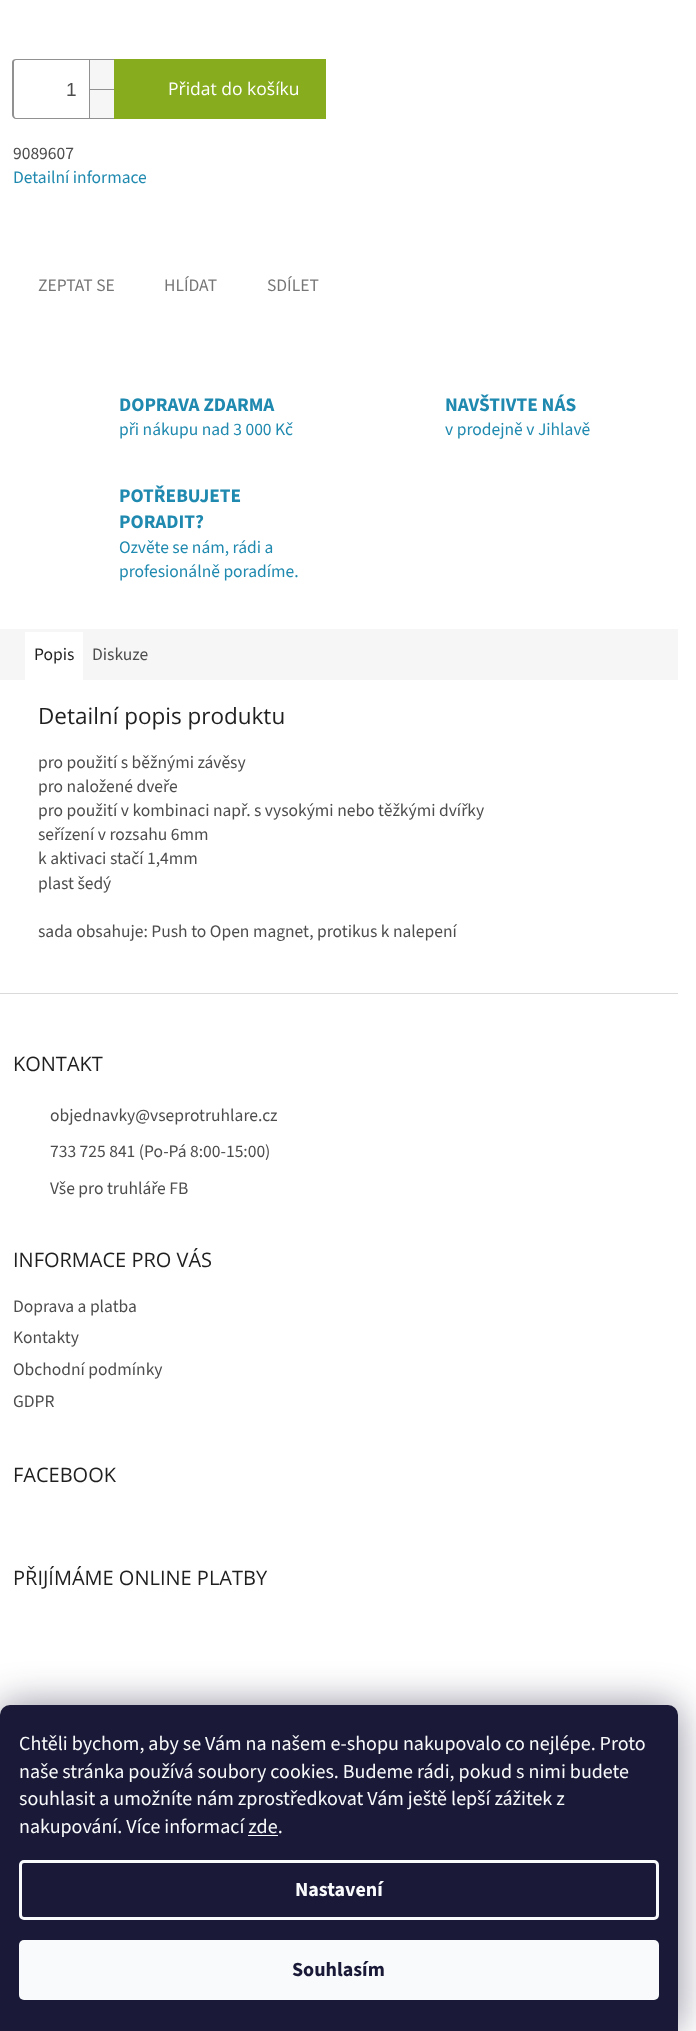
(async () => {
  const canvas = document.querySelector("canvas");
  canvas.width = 696;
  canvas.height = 2031;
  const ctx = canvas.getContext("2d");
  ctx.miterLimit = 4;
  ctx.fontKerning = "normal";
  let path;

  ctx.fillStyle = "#ffffff";
  ctx.fillRect(0, 0, 696, 2031);
  ctx.fillStyle = "#919191";
  path = new Path2D("M16 59H114V119H16C14 119 12 117 12 115V62C12 60 14 59 16 59ZM16 60H114V118H16C15 118 14 116 14 115V62C14 61 15 60 16 60Z");
  ctx.fill(path, "evenodd");
  for (const [x, y, w, h, color] of [
    [90, 60, 24, 29, "#f6f6f6"],
    [89, 60, 1, 29, "#919191"],
    [90, 90, 24, 28, "#f6f6f6"],
    [89, 89, 25, 1, "#919191"],
    [89, 89, 1, 29, "#919191"],
    [114, 59, 212, 60, "#87ad1f"],
    [0, 629, 678, 51, "#f6f6f6"],
    [25, 632, 58, 48, "#ffffff"],
    [0, 993, 678, 1, "#dadada"],
  ]) {
    ctx.fillStyle = color;
    ctx.fillRect(x, y, w, h);
  }
  ctx.fillStyle = "rgba(27, 25, 57, 0.5)";
  ctx.filter = "blur(19px)";
  ctx.beginPath();
  ctx.roundRect(0, 1705, 678, 326, 10);
  ctx.fill();
  ctx.filter = "none";
  ctx.fillStyle = "#1a1937";
  ctx.beginPath();
  ctx.roundRect(0, 1705, 678, 326, [10, 10, 0, 0]);
  ctx.fill();
  ctx.fillStyle = "#f8fafb";
  ctx.fillRect(248, 1835, 30, 1);
  ctx.beginPath();
  ctx.roundRect(20.5, 1861.5, 637, 57, 3.5);
  ctx.strokeStyle = "#f8fafb";
  ctx.lineWidth = 3;
  ctx.stroke();
  ctx.beginPath();
  ctx.roundRect(19, 1940, 640, 60, 5);
  ctx.fill();
  ctx.font = "19px Liberation Sans";
  ctx.fillStyle = "#4d4d4d";
  ctx.fillText("1", 66, 96);
  ctx.font = "17.5px Open Sans";
  ctx.fillStyle = "#ffffff";
  ctx.fillText("Přidat do košíku", 168, 95);
  ctx.font = "17.5px 'Source Sans 3'";
  ctx.fillStyle = "#4d4d4d";
  ctx.fillText("9089607", 13, 159);
  ctx.fillStyle = "#1f89af";
  ctx.fillText("Detailní informace", 13, 183);
  ctx.fillStyle = "#767676";
  for (const [text, x, y] of [
    ["ZEPTAT SE", 38, 291],
    ["HLÍDAT", 164, 291],
    ["SDÍLET", 267, 291],
  ]) {
    ctx.fillText(text, x, y);
  }
  ctx.font = "bold 19.25px 'Source Sans 3'";
  ctx.fillStyle = "#1f89af";
  ctx.fillText("DOPRAVA ZDARMA", 119, 411);
  ctx.font = "17.5px 'Source Sans 3'";
  ctx.fillText("při nákupu nad 3 000 Kč", 119, 435);
  ctx.font = "bold 19.25px 'Source Sans 3'";
  ctx.fillText("NAVŠTIVTE NÁS", 445, 411);
  ctx.font = "17.5px 'Source Sans 3'";
  ctx.fillText("v prodejně v Jihlavě", 445, 435);
  ctx.font = "bold 19.25px 'Source Sans 3'";
  ctx.fillText("POTŘEBUJETE", 119, 502);
  ctx.fillText("PORADIT?", 119, 528);
  ctx.font = "17.5px 'Source Sans 3'";
  ctx.fillText("Ozvěte se nám, rádi a", 119, 553);
  ctx.fillText("profesionálně poradíme.", 119, 577);
  ctx.fillStyle = "#1f1f1f";
  ctx.fillText("Popis", 34, 660);
  ctx.fillStyle = "#4d4d4d";
  ctx.fillText("Diskuze", 92, 660);
  ctx.font = "22.5px Open Sans";
  ctx.fillStyle = "#1f1f1f";
  ctx.fillText("Detailní popis produktu", 38, 724);
  ctx.font = "17.5px 'Source Sans 3'";
  ctx.fillStyle = "#4d4d4d";
  for (const [text, x, y] of [
    ["pro použití s běžnými závěsy", 38, 768],
    ["pro naložené dveře", 38, 792],
    ["pro použití v kombinaci např. s vysokými nebo těžkými dvířky", 38, 816],
    ["seřízení v rozsahu 6mm", 38, 840],
    ["k aktivaci stačí 1,4mm", 38, 864],
    ["plast šedý", 38, 889],
    ["sada obsahuje: Push to Open magnet, protikus k nalepení", 38, 937],
  ]) {
    ctx.fillText(text, x, y);
  }
  ctx.font = "20px Open Sans";
  ctx.fillStyle = "#1f1f1f";
  ctx.fillText("KONTAKT", 13, 1071);
  ctx.font = "17.5px 'Source Sans 3'";
  ctx.fillStyle = "#4d4d4d";
  for (const [text, x, y] of [
    ["objednavky@vseprotruhlare.cz", 50, 1121],
    ["733 725 841 (Po-Pá 8:00-15:00)", 50, 1157],
    ["Vše pro truhláře FB", 50, 1194],
  ]) {
    ctx.fillText(text, x, y);
  }
  ctx.font = "20px Open Sans";
  ctx.fillStyle = "#1f1f1f";
  ctx.fillText("INFORMACE PRO VÁS", 13, 1267);
  ctx.font = "17.5px 'Source Sans 3'";
  ctx.fillStyle = "#4d4d4d";
  for (const [text, x, y] of [
    ["Doprava a platba", 13, 1312],
    ["Kontakty", 13, 1343],
    ["Obchodní podmínky", 13, 1375],
    ["GDPR", 13, 1407],
  ]) {
    ctx.fillText(text, x, y);
  }
  ctx.font = "20px Open Sans";
  ctx.fillStyle = "#1f1f1f";
  ctx.fillText("FACEBOOK", 13, 1482);
  ctx.fillText("PŘIJÍMÁME ONLINE PLATBY", 13, 1585);
  ctx.font = "20px 'Source Sans 3'";
  ctx.fillStyle = "#f8fafb";
  for (const [text, x, y] of [
    ["Chtěli bychom, aby se Vám na našem e-shopu nakupovalo co nejlépe. Proto", 19, 1750],
    ["naše stránka používá soubory cookies. Budeme rádi, pokud s nimi budete", 19, 1778],
    ["souhlasit a umožníte nám zprostředkovat Vám ještě lepší zážitek z", 19, 1805],
    ["nakupování. Více informací zde.", 19, 1833],
  ]) {
    ctx.fillText(text, x, y);
  }
  ctx.font = "bold 20px 'Source Sans 3'";
  ctx.fillText("Nastavení", 295, 1896);
  ctx.fillStyle = "#1a1937";
  ctx.fillText("Souhlasím", 292, 1976);
})();
